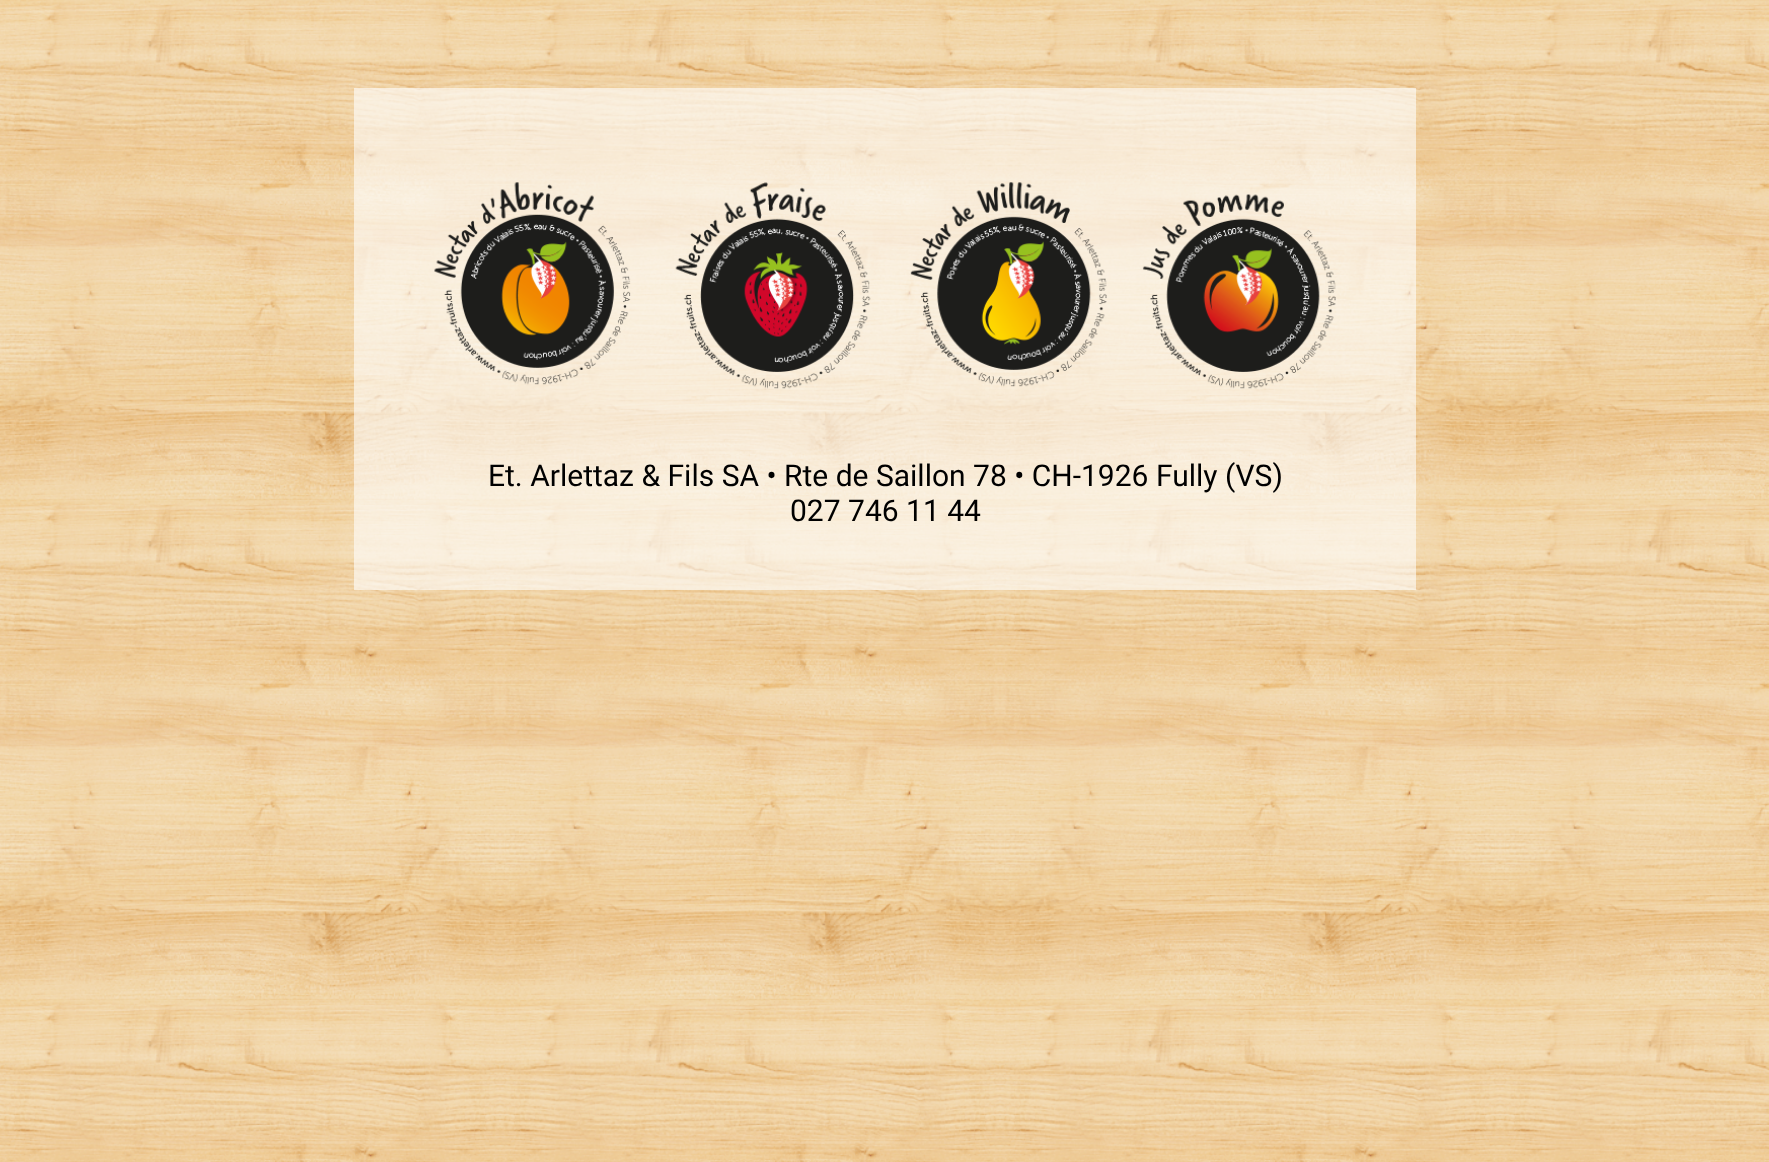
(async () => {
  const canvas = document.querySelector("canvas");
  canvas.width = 1769;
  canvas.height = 1162;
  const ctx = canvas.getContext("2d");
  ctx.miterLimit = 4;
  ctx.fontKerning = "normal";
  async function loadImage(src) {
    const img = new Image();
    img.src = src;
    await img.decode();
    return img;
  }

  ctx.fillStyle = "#ffffff";
  ctx.fillRect(0, 0, 1769, 1162);
  ctx.drawImage(await loadImage("img/1.png"), 0, 0, 1769, 1162);
  ctx.fillStyle = "rgba(255, 255, 255, 0.6)";
  ctx.fillRect(354, 88, 1062, 502);
  ctx.drawImage(await loadImage("img/2.png"), 434, 182, 902, 207);
  ctx.font = "30px Roboto";
  ctx.fillStyle = "#000000";
  ctx.fillText("Et. Arlettaz & Fils SA • Rte de Saillon 78 • CH-1926 Fully (VS)", 488, 486);
  ctx.fillText("027 746 11 44", 790, 521);
})();
